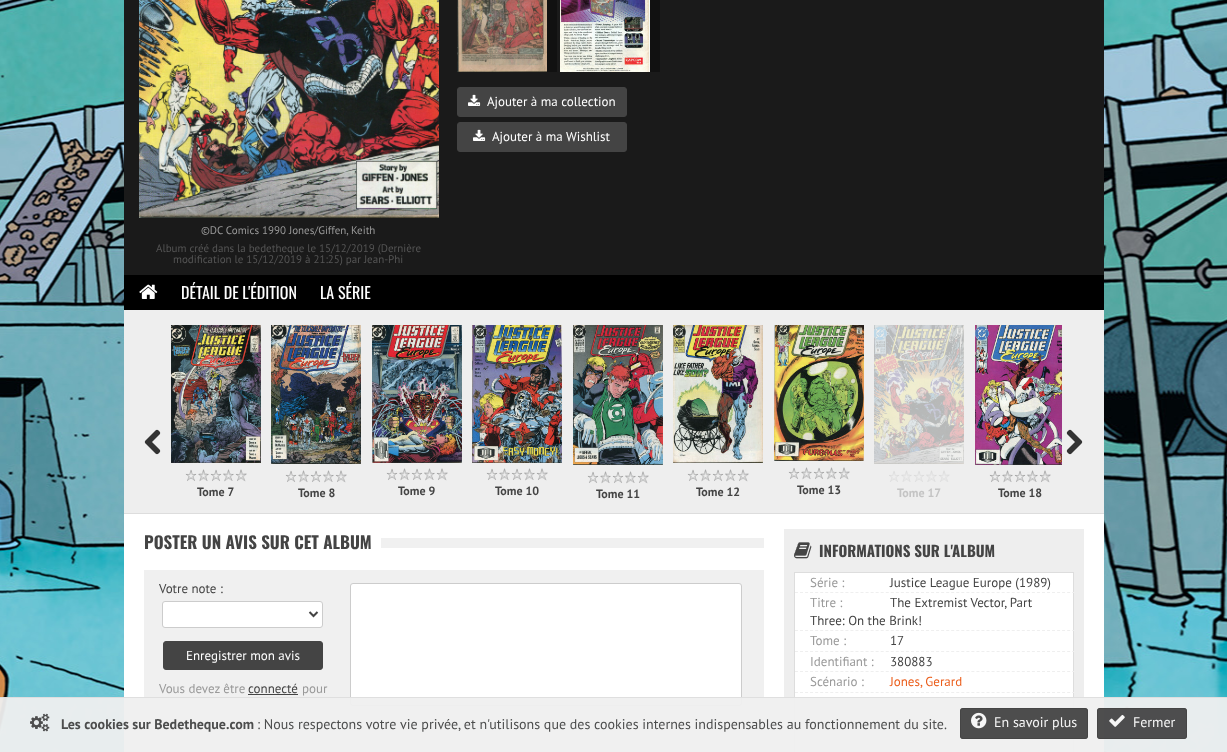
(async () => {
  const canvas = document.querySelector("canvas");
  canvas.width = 1227;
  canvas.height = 752;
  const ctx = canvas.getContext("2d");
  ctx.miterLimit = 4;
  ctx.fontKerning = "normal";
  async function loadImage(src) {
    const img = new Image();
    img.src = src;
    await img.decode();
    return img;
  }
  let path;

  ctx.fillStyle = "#ffffff";
  ctx.fillRect(0, 0, 1227, 752);
  ctx.drawImage(await loadImage("img/1.png"), 0, 0, 1227, 752);
  for (const [x, y, w, h, color] of [
    [124, 514, 980, 238, "#ffffff"],
    [124, 0, 980, 275, "#1a1a1a"],
    [547, 0, 10, 72, "#111111"],
  ]) {
    ctx.fillStyle = color;
    ctx.fillRect(x, y, w, h);
  }
  ctx.drawImage(await loadImage("img/2.png"), 457, 0, 90, 72);
  ctx.fillRect(650, 0, 10, 72);
  ctx.drawImage(await loadImage("img/3.png"), 560, 0, 90, 72);
  ctx.fillStyle = "#444444";
  ctx.beginPath();
  ctx.roundRect(457.5, 87.5, 169, 29, 2.5);
  ctx.fill();
  ctx.strokeStyle = "#444444";
  ctx.stroke();
  ctx.drawImage(await loadImage("img/4.png"), 468, 94, 13, 12);
  ctx.beginPath();
  ctx.roundRect(457.5, 122.5, 169, 29, 2.5);
  ctx.fill();
  ctx.stroke();
  ctx.drawImage(await loadImage("img/4.png"), 473, 129, 13, 12);
  ctx.drawImage(await loadImage("img/5.png"), 139, 0, 300, 218);
  ctx.fillStyle = "#000000";
  ctx.fillRect(124, 275, 980, 35);
  ctx.drawImage(await loadImage("img/6.png"), 139, 284, 19, 15);
  ctx.fillStyle = "#eeeeee";
  ctx.fillRect(124, 310, 980, 203);
  ctx.fillStyle = "#dddddd";
  ctx.fillRect(124, 513, 980, 1);
  ctx.drawImage(await loadImage("img/7.png"), 144, 429, 17, 26);
  ctx.drawImage(await loadImage("img/8.png"), 1066, 429, 17, 26);
  ctx.drawImage(await loadImage("img/9.png"), 171, 325, 90, 138);
  ctx.drawImage(await loadImage("img/10.png"), 185, 469, 62, 13);
  ctx.drawImage(await loadImage("img/11.png"), 271, 325, 90, 139);
  ctx.drawImage(await loadImage("img/10.png"), 285, 470, 62, 13);
  ctx.drawImage(await loadImage("img/12.png"), 372, 325, 90, 138);
  ctx.drawImage(await loadImage("img/10.png"), 386, 468, 62, 13);
  ctx.drawImage(await loadImage("img/13.png"), 472, 325, 90, 138);
  ctx.drawImage(await loadImage("img/10.png"), 486, 468, 62, 13);
  ctx.drawImage(await loadImage("img/14.png"), 573, 325, 90, 140);
  ctx.drawImage(await loadImage("img/10.png"), 587, 471, 62, 13);
  ctx.drawImage(await loadImage("img/15.png"), 673, 325, 90, 138);
  ctx.drawImage(await loadImage("img/10.png"), 687, 469, 62, 13);
  ctx.drawImage(await loadImage("img/16.png"), 774, 325, 90, 136);
  ctx.drawImage(await loadImage("img/10.png"), 788, 467, 62, 13);
  ctx.drawImage(await loadImage("img/17.png"), 874, 325, 90, 139);
  ctx.drawImage(await loadImage("img/18.png"), 889, 470, 61, 12);
  ctx.drawImage(await loadImage("img/19.png"), 975, 325, 87, 140);
  ctx.drawImage(await loadImage("img/10.png"), 989, 470, 62, 13);
  ctx.fillStyle = "#f0f0f0";
  ctx.fillRect(381, 538, 383, 10);
  ctx.fillRect(144, 570, 620, 151);
  ctx.fillStyle = "#ffffff";
  ctx.beginPath();
  ctx.roundRect(162.5, 601.5, 160, 26, 2.5);
  ctx.fill();
  ctx.strokeStyle = "#cccccc";
  ctx.stroke();
  path = new Path2D("M309.5 612L313.5 616L317.5 612");
  ctx.strokeStyle = "#444444";
  ctx.lineWidth = 2;
  ctx.stroke(path);
  ctx.fillStyle = "#444444";
  ctx.beginPath();
  ctx.roundRect(163.5, 641.5, 159, 28, 2.5);
  ctx.fill();
  ctx.lineWidth = 1;
  ctx.stroke();
  ctx.fillRect(248, 694, 50, 1);
  ctx.fillStyle = "#ffffff";
  ctx.beginPath();
  ctx.roundRect(350.5, 583.5, 391, 122, 2.5);
  ctx.fill();
  ctx.strokeStyle = "#cccccc";
  ctx.stroke();
  ctx.fillStyle = "#f0f0f0";
  ctx.fillRect(404, 745, 360, 7);
  ctx.fillStyle = "#eeeeee";
  ctx.fillRect(784, 529, 300, 223);
  ctx.drawImage(await loadImage("img/20.png"), 794, 542, 18, 17);
  ctx.strokeStyle = "#dddddd";
  ctx.strokeRect(794.5, 572.5, 279, 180);
  ctx.fillStyle = "#ffffff";
  ctx.fillRect(795, 573, 278, 179);
  path = new Path2D("M795 592.5H1075");
  ctx.strokeStyle = "#efefef";
  ctx.setLineDash([3, 2.04]);
  ctx.stroke(path);
  path = new Path2D("M795 630.5H1075");
  ctx.stroke(path);
  path = new Path2D("M795 651.5H1075");
  ctx.stroke(path);
  path = new Path2D("M795 671.5H1075");
  ctx.stroke(path);
  path = new Path2D("M795 692.5H1075");
  ctx.stroke(path);
  path = new Path2D("M795 713.5H1075");
  ctx.stroke(path);
  path = new Path2D("M795 733.5H1075");
  ctx.stroke(path);
  ctx.fillStyle = "rgba(239, 239, 239, 0.95)";
  ctx.fillRect(0, 697, 1227, 55);
  ctx.fillStyle = "rgba(221, 221, 221, 0.95)";
  ctx.fillRect(0, 697, 1227, 1);
  ctx.drawImage(await loadImage("img/21.png"), 30, 713, 20, 19);
  ctx.fillStyle = "#4d4d4d";
  ctx.beginPath();
  ctx.roundRect(960, 708, 128, 31, 3);
  ctx.fill();
  ctx.beginPath();
  ctx.roundRect(960.5, 708.5, 127, 30, 2.5);
  ctx.strokeStyle = "rgba(68, 68, 68, 0.95)";
  ctx.setLineDash([]);
  ctx.stroke();
  ctx.drawImage(await loadImage("img/22.png"), 971, 712, 16, 17);
  ctx.fillStyle = "rgba(68, 68, 68, 0.95)";
  ctx.beginPath();
  ctx.roundRect(1097, 708, 90, 31, 3);
  ctx.fill();
  ctx.beginPath();
  ctx.roundRect(1097.5, 708.5, 89, 30, 2.5);
  ctx.stroke();
  ctx.drawImage(await loadImage("img/23.png"), 1109, 714, 16, 13);
  ctx.font = "13px PT Sans";
  ctx.fillStyle = "#ffffff";
  ctx.fillText("Ajouter à ma collection", 487, 106);
  ctx.fillText("Ajouter à ma Wishlist", 492, 141);
  ctx.font = "11px PT Sans";
  ctx.fillStyle = "#999999";
  ctx.fillText("©DC Comics 1990 Jones/Giffen, Keith", 201, 234);
  ctx.fillStyle = "#555555";
  ctx.fillText("Album créé dans la bedetheque le 15/12/2019 (Dernière", 156, 252);
  ctx.fillText("modification le 15/12/2019 à 21:25) par Jean-Phi", 173, 263);
  ctx.font = "16px Oswald";
  ctx.fillStyle = "#ffffff";
  ctx.fillText("DÉTAIL DE L'ÉDITION", 181, 299);
  ctx.fillText("LA SÉRIE", 320, 299);
  ctx.font = "bold 12px PT Sans";
  ctx.fillStyle = "#444444";
  for (const [text, x, y] of [
    ["Tome 7", 197, 496],
    ["Tome 8", 298, 497],
    ["Tome 9", 398, 495],
    ["Tome 10", 495, 495],
    ["Tome 11", 596, 498],
    ["Tome 12", 696, 496],
    ["Tome 13", 797, 494],
  ]) {
    ctx.fillText(text, x, y);
  }
  ctx.fillStyle = "#c4c4c4";
  ctx.fillText("Tome 17", 897, 497);
  ctx.fillStyle = "#444444";
  ctx.fillText("Tome 18", 998, 497);
  ctx.font = "bold 16.9px Oswald";
  ctx.fillText("POSTER UN AVIS SUR CET ALBUM", 144, 549);
  ctx.font = "13px PT Sans";
  ctx.fillText("Votre note :", 159, 593);
  ctx.fillStyle = "#ffffff";
  ctx.fillText("Enregistrer mon avis", 186, 660);
  ctx.fillStyle = "#999999";
  ctx.fillText("Vous devez être", 159, 693);
  ctx.fillStyle = "#444444";
  ctx.fillText("connecté", 248, 693);
  ctx.fillStyle = "#999999";
  ctx.fillText("pour", 302, 693);
  ctx.font = "bold 15px Oswald";
  ctx.fillStyle = "#444444";
  ctx.fillText("INFORMATIONS SUR L'ALBUM", 819, 557);
  ctx.font = "13px PT Sans";
  ctx.fillStyle = "#999999";
  ctx.fillText("Série :", 810, 587);
  ctx.fillStyle = "#444444";
  ctx.fillText("Justice League Europe (1989)", 890, 587);
  ctx.fillStyle = "#999999";
  ctx.fillText("Titre :", 810, 607);
  ctx.fillStyle = "#444444";
  ctx.fillText("The Extremist Vector, Part", 890, 607);
  ctx.fillText("Three: On the Brink!", 810, 625);
  ctx.fillStyle = "#999999";
  ctx.fillText("Tome :", 810, 645);
  ctx.fillStyle = "#444444";
  ctx.fillText("17", 890, 645);
  ctx.fillStyle = "#999999";
  ctx.fillText("Identifiant :", 810, 666);
  ctx.fillStyle = "#444444";
  ctx.fillText("380883", 890, 666);
  ctx.fillStyle = "#999999";
  ctx.fillText("Scénario :", 810, 686);
  ctx.fillStyle = "#eb5e1c";
  ctx.fillText("Jones, Gerard", 890, 686);
  ctx.font = "bold 14px PT Sans";
  ctx.fillStyle = "#4c4d4d";
  ctx.fillText("Les cookies sur Bedetheque.com", 61, 729);
  ctx.font = "14px PT Sans";
  ctx.fillText(": Nous respectons votre vie privée, et n'utilisons que des cookies internes indispensables au fonctionnement du site.", 257, 729);
  ctx.fillStyle = "#f6f6f6";
  ctx.fillText("En savoir plus", 994, 727);
  ctx.fillText("Fermer", 1133, 727);
})();
